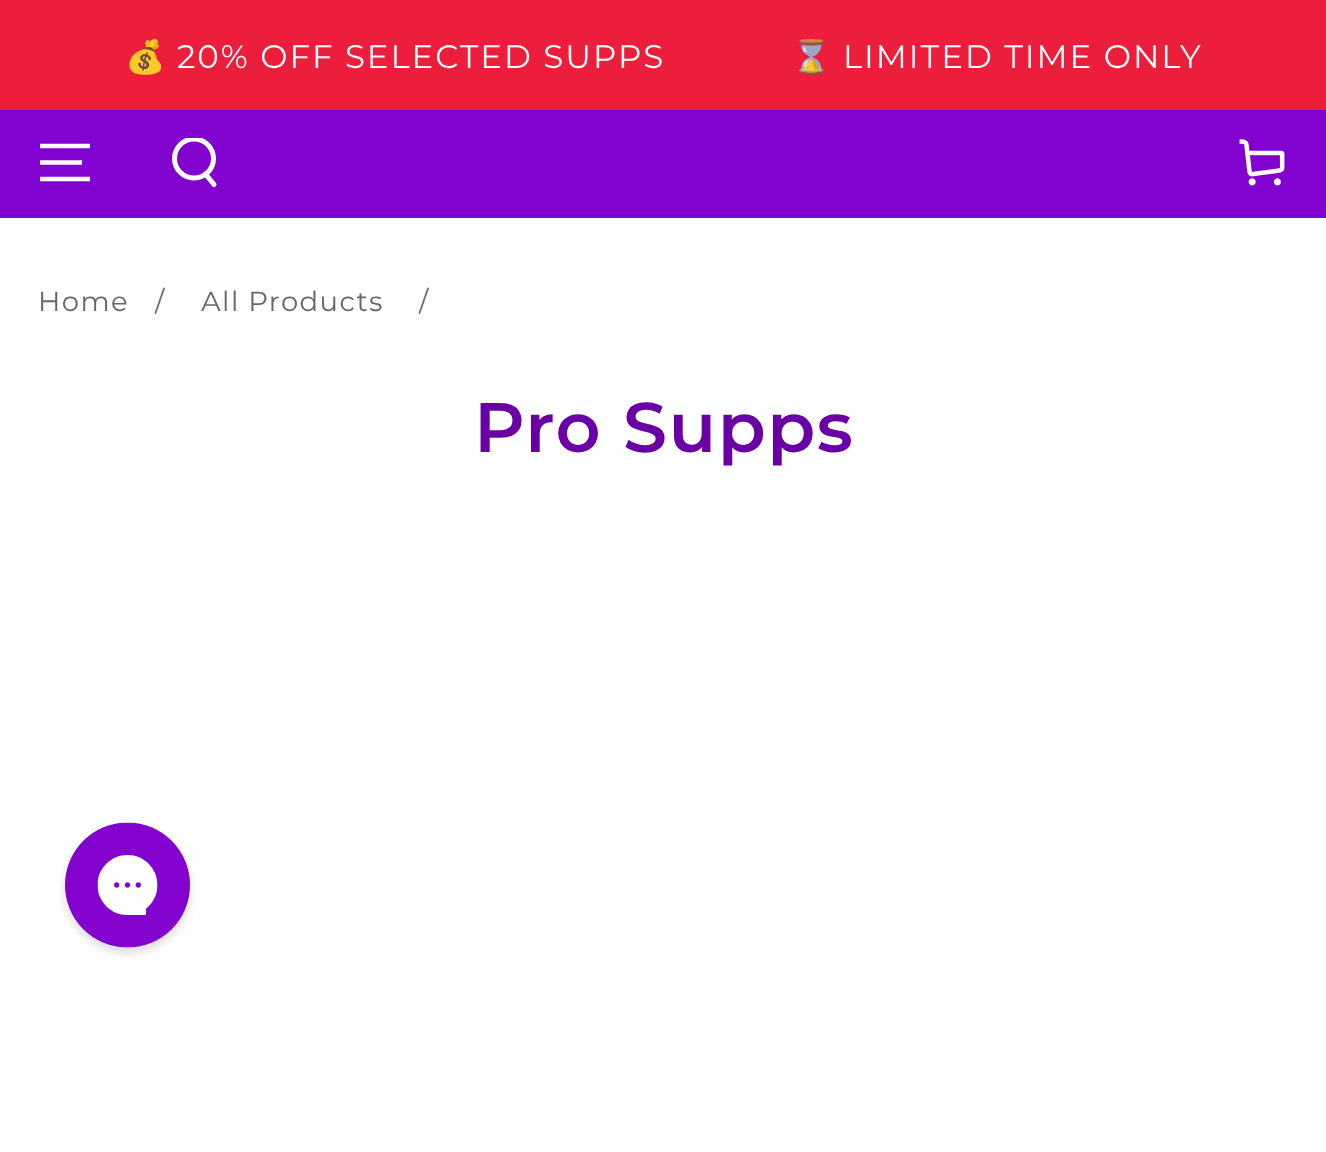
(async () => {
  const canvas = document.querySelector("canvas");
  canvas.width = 1326;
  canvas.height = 1152;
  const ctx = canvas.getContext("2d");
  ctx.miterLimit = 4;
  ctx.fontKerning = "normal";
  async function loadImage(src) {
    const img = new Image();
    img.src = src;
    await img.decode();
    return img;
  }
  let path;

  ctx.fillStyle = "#ffffff";
  ctx.fillRect(0, 0, 1326, 1152);
  ctx.fillStyle = "#ed1e3c";
  ctx.fillRect(0, 0, 1326, 110);
  ctx.fillStyle = "#8203cf";
  ctx.fillRect(0, 110, 1326, 108);
  path = new Path2D("M40 179H90M40 162.5H82M40 146H90");
  ctx.strokeStyle = "#ffffff";
  ctx.lineWidth = 4.7;
  ctx.stroke(path);
  ctx.save();
  ctx.beginPath();
  ctx.rect(170, 138, 50, 50);
  ctx.clip();
  ctx.beginPath();
  ctx.arc(194, 158.5, 19.5, 0, Math.PI * 2);
  ctx.lineWidth = 5;
  ctx.stroke();
  ctx.restore();
  path = new Path2D("M205.5 174L214 184.5");
  ctx.lineWidth = 5;
  ctx.lineCap = "round";
  ctx.stroke(path);
  ctx.drawImage(await loadImage("img/1.png"), 1239, 139, 46, 47);
  ctx.drawImage(await loadImage("img/2.png"), 60, 822, 135, 135);
  ctx.letterSpacing = "1.95px";
  ctx.font = "32.5px Noto Color Emoji";
  ctx.fillStyle = "#ffffff";
  ctx.fillText("💰", 125, 68);
  ctx.font = "100 32.5px Montserrat";
  ctx.fillText("20% OFF SELECTED SUPPS", 177, 68);
  ctx.font = "32.5px Noto Color Emoji";
  ctx.fillText("⌛", 791, 68);
  ctx.font = "100 32.5px Montserrat";
  ctx.fillText("LIMITED TIME ONLY", 843, 68);
  ctx.letterSpacing = "1.4px";
  ctx.font = "100 27.5px Montserrat";
  ctx.fillStyle = "#676767";
  for (const [text, x, y] of [
    ["Home", 38, 311],
    ["/", 155, 311],
    ["All Products", 201, 311],
    ["/", 419, 311],
  ]) {
    ctx.fillText(text, x, y);
  }
  ctx.letterSpacing = "1.5px";
  ctx.font = "600 70px Montserrat";
  ctx.fillStyle = "#6900a5";
  ctx.fillText("Pro Supps", 474, 452);
})();
